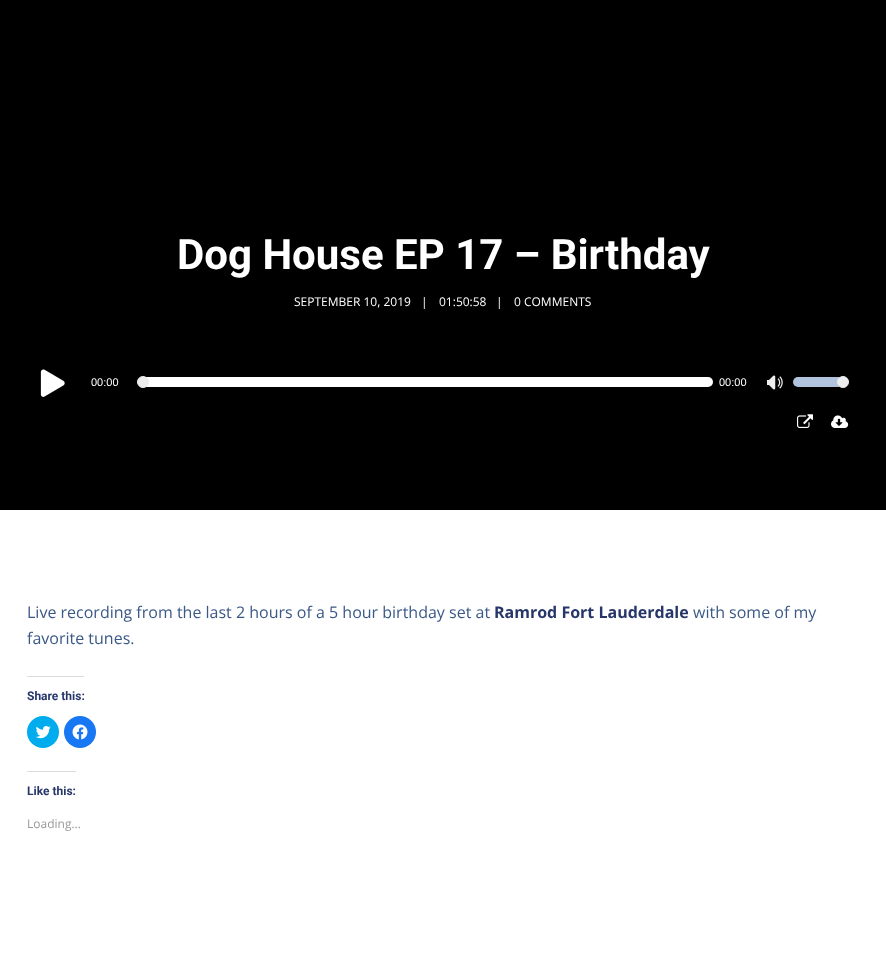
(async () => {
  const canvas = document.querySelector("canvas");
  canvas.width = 886;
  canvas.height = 976;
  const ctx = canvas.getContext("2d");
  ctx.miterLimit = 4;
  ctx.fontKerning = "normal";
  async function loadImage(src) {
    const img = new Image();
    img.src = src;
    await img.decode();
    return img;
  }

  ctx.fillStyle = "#ffffff";
  ctx.fillRect(0, 0, 886, 976);
  ctx.fillStyle = "#000000";
  ctx.fillRect(0, 0, 886, 510);
  ctx.drawImage(await loadImage("img/1.png"), 40, 369, 25, 28);
  ctx.fillStyle = "#ffffff";
  ctx.beginPath();
  ctx.roundRect(141, 377, 572, 10, 5);
  ctx.fill();
  ctx.fillStyle = "#ededed";
  ctx.beginPath();
  ctx.arc(143, 382, 5.5, 0, Math.PI * 2);
  ctx.fill();
  ctx.strokeStyle = "#ededed";
  ctx.stroke();
  ctx.drawImage(await loadImage("img/2.png"), 767, 375, 16, 15);
  ctx.fillStyle = "#b2c3de";
  ctx.beginPath();
  ctx.roundRect(793, 377, 50, 10, 5);
  ctx.fill();
  ctx.fillStyle = "#ededed";
  ctx.beginPath();
  ctx.arc(843, 382, 5.5, 0, Math.PI * 2);
  ctx.fill();
  ctx.stroke();
  ctx.drawImage(await loadImage("img/3.png"), 797, 414, 16, 14);
  ctx.drawImage(await loadImage("img/4.png"), 831, 415, 18, 13);
  ctx.fillStyle = "#dcdcde";
  ctx.fillRect(27, 676, 57, 1);
  ctx.fillStyle = "#00acee";
  ctx.beginPath();
  ctx.arc(43, 732, 16, 0, Math.PI * 2);
  ctx.fill();
  ctx.drawImage(await loadImage("img/5.png"), 35, 726, 16, 13);
  ctx.fillStyle = "#1877f2";
  ctx.beginPath();
  ctx.arc(80, 732, 16, 0, Math.PI * 2);
  ctx.fill();
  ctx.drawImage(await loadImage("img/6.png"), 72, 724, 16, 16);
  ctx.fillStyle = "#dcdcde";
  ctx.fillRect(27, 771, 49, 1);
  ctx.font = "bold 42px Roboto";
  ctx.fillStyle = "#ffffff";
  ctx.fillText("Dog House EP 17 – Birthday", 177, 269);
  ctx.font = "12px Open Sans";
  for (const [text, x, y] of [
    ["SEPTEMBER 10, 2019", 294, 306],
    ["|", 421, 306],
    ["01:50:58", 439, 306],
    ["|", 496, 306],
    ["0 COMMENTS", 514, 306],
  ]) {
    ctx.fillText(text, x, y);
  }
  ctx.font = "11px Liberation Sans";
  ctx.fillText("00:00", 91, 386);
  ctx.fillText("00:00", 719, 386);
  ctx.font = "16px Open Sans";
  ctx.fillStyle = "#3b5987";
  ctx.fillText("Live recording from the last 2 hours of a 5 hour birthday set at", 27, 618);
  ctx.font = "bold 16px Open Sans";
  ctx.fillStyle = "#263669";
  ctx.fillText("Ramrod Fort Lauderdale", 494, 618);
  ctx.font = "16px Open Sans";
  ctx.fillStyle = "#3b5987";
  ctx.fillText("with some of my", 693, 618);
  ctx.fillText("favorite tunes.", 27, 644);
  ctx.font = "bold 12px Roboto";
  ctx.fillStyle = "#263669";
  ctx.fillText("Share this:", 27, 700);
  ctx.fillText("Like this:", 27, 795);
  ctx.font = "12px Open Sans";
  ctx.fillStyle = "#999999";
  ctx.fillText("Loading...", 27, 828);
})();
